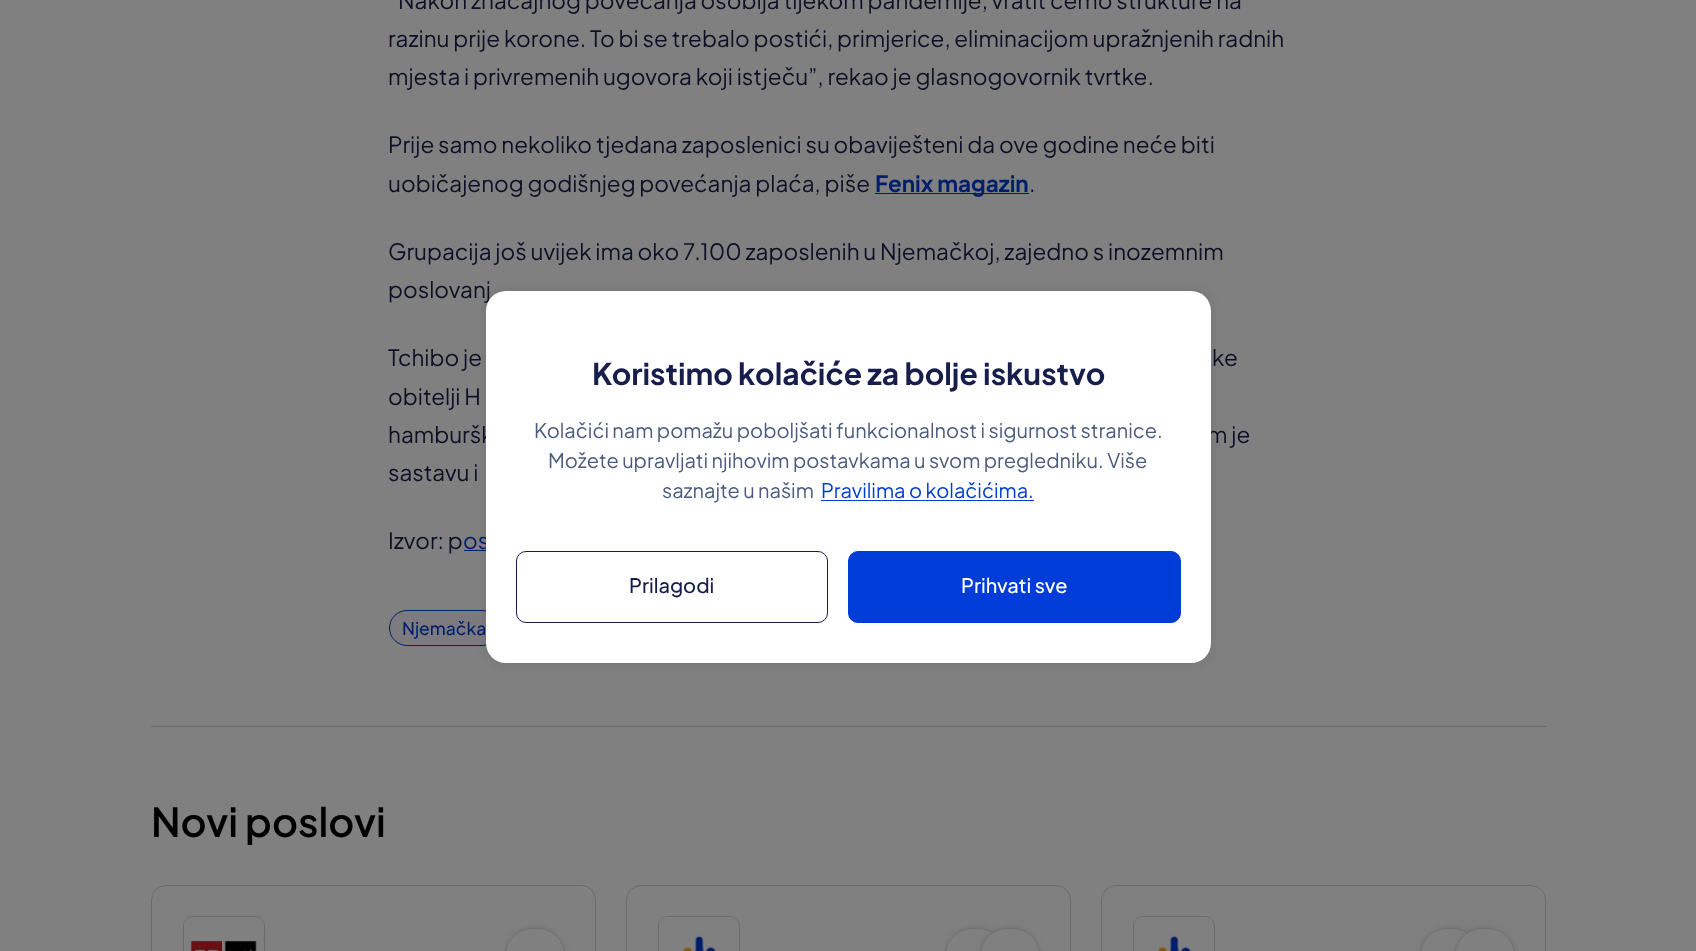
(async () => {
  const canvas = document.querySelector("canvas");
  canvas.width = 1696;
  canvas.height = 951;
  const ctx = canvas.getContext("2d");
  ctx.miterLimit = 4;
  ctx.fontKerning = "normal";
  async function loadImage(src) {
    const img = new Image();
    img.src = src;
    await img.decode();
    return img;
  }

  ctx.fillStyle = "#808080";
  ctx.fillRect(0, 0, 1696, 951);
  ctx.fillStyle = "#001e6c";
  ctx.fillRect(875, 193, 154, 1);
  ctx.fillRect(464, 550, 22, 1);
  ctx.fillStyle = "#7d7b80";
  ctx.beginPath();
  ctx.roundRect(389.5, 610.5, 110, 35, 17.5);
  ctx.fill();
  ctx.strokeStyle = "#001e6c";
  ctx.stroke();
  ctx.fillStyle = "#6a6c70";
  ctx.fillRect(151, 726, 1395, 1);
  ctx.beginPath();
  ctx.roundRect(151.5, 885.5, 444, 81, 14.5);
  ctx.strokeStyle = "#6a6c70";
  ctx.stroke();
  ctx.beginPath();
  ctx.roundRect(183.5, 916.5, 81, 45, 9.5);
  ctx.stroke();
  ctx.drawImage(await loadImage("img/1.png"), 184, 917, 79, 34);
  ctx.fillStyle = "#6d6d6d";
  ctx.filter = "blur(3px)";
  ctx.beginPath();
  ctx.roundRect(505, 928, 60, 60, 30);
  ctx.fill();
  ctx.filter = "none";
  ctx.fillStyle = "#808080";
  ctx.beginPath();
  ctx.roundRect(505.5, 928.5, 59, 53, 29.5);
  ctx.fill();
  ctx.strokeStyle = "#717276";
  ctx.stroke();
  ctx.beginPath();
  ctx.roundRect(626.5, 885.5, 444, 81, 14.5);
  ctx.strokeStyle = "#6a6c70";
  ctx.stroke();
  ctx.beginPath();
  ctx.roundRect(658.5, 916.5, 81, 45, 9.5);
  ctx.stroke();
  ctx.drawImage(await loadImage("img/2.png"), 659, 917, 79, 34);
  ctx.fillStyle = "#6d6d6d";
  ctx.filter = "blur(3px)";
  ctx.beginPath();
  ctx.roundRect(945, 928, 60, 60, 30);
  ctx.fill();
  ctx.filter = "none";
  ctx.fillStyle = "#808080";
  ctx.beginPath();
  ctx.roundRect(945.5, 928.5, 59, 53, 29.5);
  ctx.fill();
  ctx.strokeStyle = "#717276";
  ctx.stroke();
  ctx.fillStyle = "#6d6d6d";
  ctx.filter = "blur(3px)";
  ctx.beginPath();
  ctx.roundRect(980, 928, 60, 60, 30);
  ctx.fill();
  ctx.filter = "none";
  ctx.fillStyle = "#808080";
  ctx.beginPath();
  ctx.roundRect(980.5, 928.5, 59, 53, 29.5);
  ctx.fill();
  ctx.stroke();
  ctx.beginPath();
  ctx.roundRect(1101.5, 885.5, 444, 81, 14.5);
  ctx.strokeStyle = "#6a6c70";
  ctx.stroke();
  ctx.beginPath();
  ctx.roundRect(1133.5, 916.5, 81, 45, 9.5);
  ctx.stroke();
  ctx.drawImage(await loadImage("img/3.png"), 1134, 917, 79, 34);
  ctx.fillStyle = "#6d6d6d";
  ctx.filter = "blur(3px)";
  ctx.beginPath();
  ctx.roundRect(1420, 928, 60, 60, 30);
  ctx.fill();
  ctx.filter = "none";
  ctx.fillStyle = "#808080";
  ctx.beginPath();
  ctx.roundRect(1420.5, 928.5, 59, 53, 29.5);
  ctx.fill();
  ctx.strokeStyle = "#717276";
  ctx.stroke();
  ctx.fillStyle = "#6d6d6d";
  ctx.filter = "blur(3px)";
  ctx.beginPath();
  ctx.roundRect(1455, 928, 60, 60, 30);
  ctx.fill();
  ctx.filter = "none";
  ctx.fillStyle = "#808080";
  ctx.beginPath();
  ctx.roundRect(1455.5, 928.5, 59, 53, 29.5);
  ctx.fill();
  ctx.stroke();
  ctx.fillStyle = "rgba(0, 0, 0, 0.1)";
  ctx.filter = "blur(6px)";
  ctx.beginPath();
  ctx.roundRect(486, 291, 725, 372, 20);
  ctx.fill();
  ctx.filter = "none";
  ctx.font = "22.5px Plus Jakarta Sans";
  ctx.fillStyle = "#0c0f26";
  for (const [text, x, y] of [
    ["Nakon značajnog povećanja osoblja tijekom pandemije, vratit ćemo strukture na", 398, 9],
    ["razinu prije korone. To bi se trebalo postići, primjerice, eliminacijom upražnjenih radnih", 388, 47],
    ["mjesta i privremenih ugovora koji istječu”, rekao je glasnogovornik tvrtke.", 388, 85],
    ["Prije samo nekoliko tjedana zaposlenici su obaviješteni da ove godine neće biti", 388, 153],
    ["uobičajenog godišnjeg povećanja plaća, piše", 388, 192],
  ]) {
    ctx.fillText(text, x, y);
  }
  ctx.font = "bold 22.5px Plus Jakarta Sans";
  ctx.fillStyle = "#001e6c";
  ctx.fillText("Fenix magazin", 875, 192);
  ctx.font = "22.5px Plus Jakarta Sans";
  ctx.fillStyle = "#0c0f26";
  for (const [text, x, y] of [
    [".", 1029, 192],
    ["Grupacija još uvijek ima oko 7.100 zaposlenih u Njemačkoj, zajedno s inozemnim", 388, 260],
    ["poslovanj", 388, 298],
    ["Tchibo je", 388, 366],
    ["ke", 1212, 366],
    ["obitelji H", 388, 405],
    ["hamburšk", 388, 443],
    ["m je", 1207, 443],
    ["sastavu i", 388, 481],
    ["Izvor: p", 388, 549],
  ]) {
    ctx.fillText(text, x, y);
  }
  ctx.fillStyle = "#001e6c";
  ctx.fillText("os", 463, 549);
  ctx.font = "500 17.5px Plus Jakarta Sans";
  ctx.fillText("Njemačka", 402, 635);
  ctx.font = "600 40px Plus Jakarta Sans";
  ctx.fillStyle = "#000000";
  ctx.fillText("Novi poslovi", 151, 837);
  ctx.fillStyle = "#ffffff";
  ctx.beginPath();
  ctx.roundRect(486, 291, 725, 372, 20);
  ctx.fill();
  ctx.font = "bold 30px Plus Jakarta Sans";
  ctx.fillStyle = "#181e4b";
  ctx.fillText("Koristimo kolačiće za bolje iskustvo", 592, 385);
  ctx.font = "20px Plus Jakarta Sans";
  ctx.fillStyle = "#4a5b7f";
  for (const [text, x, y] of [
    ["Kolačići nam pomažu poboljšati funkcionalnost i sigurnost stranice.", 534, 438],
    ["Možete upravljati njihovim postavkama u svom pregledniku. Više", 548, 468],
    ["saznajte u našim", 662, 498],
  ]) {
    ctx.fillText(text, x, y);
  }
  ctx.fillStyle = "#003cd7";
  ctx.fillText("Pravilima o kolačićima.", 821, 498);
  ctx.fillRect(821, 500, 213, 1);
  ctx.beginPath();
  ctx.roundRect(516.5, 551.5, 311, 71, 9.5);
  ctx.strokeStyle = "#181e4b";
  ctx.stroke();
  ctx.font = "500 20px Plus Jakarta Sans";
  ctx.fillStyle = "#181e4b";
  ctx.fillText("Prilagodi", 629, 593);
  ctx.fillStyle = "#003cd7";
  ctx.beginPath();
  ctx.roundRect(848.5, 551.5, 332, 71, 9.5);
  ctx.fill();
  ctx.strokeStyle = "#003cd7";
  ctx.stroke();
  ctx.fillStyle = "#ffffff";
  ctx.fillText("Prihvati sve", 961, 593);
})();
